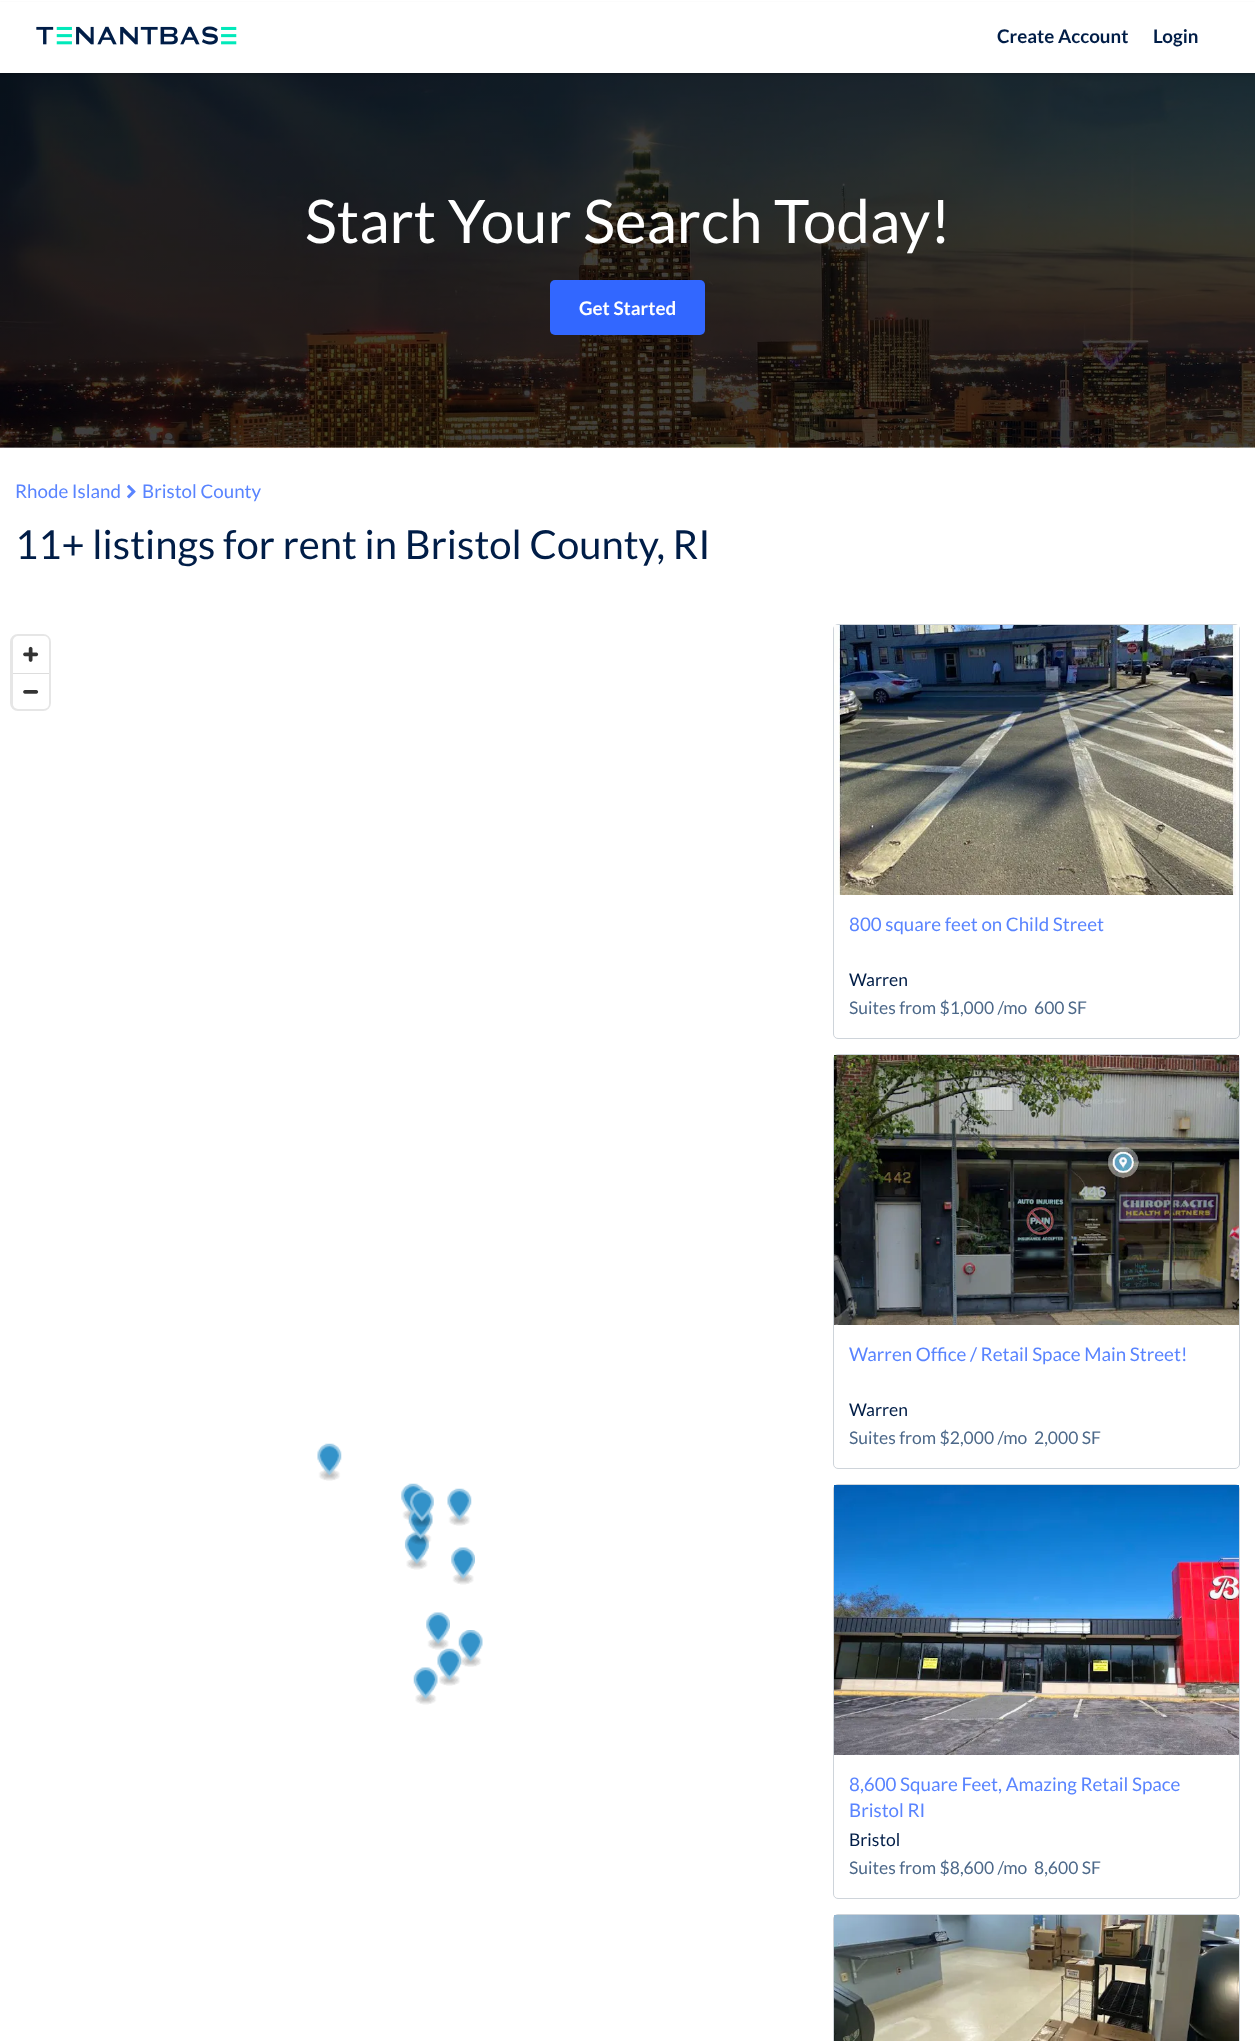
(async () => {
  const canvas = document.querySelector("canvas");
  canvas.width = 1255;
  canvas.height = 2041;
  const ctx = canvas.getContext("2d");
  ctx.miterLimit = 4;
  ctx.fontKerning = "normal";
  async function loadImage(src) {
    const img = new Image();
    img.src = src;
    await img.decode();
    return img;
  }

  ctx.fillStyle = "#ffffff";
  ctx.fillRect(0, 0, 1255, 2041);
  ctx.drawImage(await loadImage("img/2.png"), 0, 73, 1255, 375);
  ctx.fillStyle = "rgba(0, 0, 0, 0.15)";
  ctx.filter = "blur(1px)";
  ctx.beginPath();
  ctx.rect(0, 3, 1255, 72);
  ctx.fill();
  ctx.filter = "none";
  ctx.fillStyle = "#ffffff";
  ctx.fillRect(0, 2, 1255, 71);
  ctx.drawImage(await loadImage("img/1.png"), 36, 26, 201, 19);
  ctx.fillStyle = "#3267ff";
  ctx.beginPath();
  ctx.roundRect(550, 280, 155, 55, 5);
  ctx.fill();
  ctx.drawImage(await loadImage("img/3.png"), 127, 484, 9, 15);
  ctx.beginPath();
  ctx.roundRect(11.5, 635.5, 38, 74, 6.5);
  ctx.strokeStyle = "#e6e6e6";
  ctx.lineWidth = 3;
  ctx.stroke();
  ctx.fillStyle = "#ffffff";
  ctx.beginPath();
  ctx.roundRect(13, 636, 36, 73, 5);
  ctx.fill();
  ctx.drawImage(await loadImage("img/4.png"), 23, 646, 16, 16);
  ctx.fillStyle = "#dddddd";
  ctx.fillRect(13, 673, 36, 1);
  ctx.drawImage(await loadImage("img/5.png"), 23, 690, 16, 4);
  ctx.drawImage(await loadImage("img/6.png"), 317, 1443, 25, 38);
  ctx.drawImage(await loadImage("img/7.png"), 401, 1483, 24, 38);
  ctx.drawImage(await loadImage("img/6.png"), 447, 1488, 25, 38);
  ctx.drawImage(await loadImage("img/10.png"), 404, 1532, 25, 38);
  ctx.drawImage(await loadImage("img/9.png"), 408, 1509, 25, 36);
  ctx.drawImage(await loadImage("img/8.png"), 409, 1490, 25, 37);
  ctx.drawImage(await loadImage("img/11.png"), 451, 1547, 24, 38);
  ctx.drawImage(await loadImage("img/13.png"), 458, 1630, 25, 37);
  ctx.drawImage(await loadImage("img/15.png"), 437, 1648, 25, 38);
  ctx.drawImage(await loadImage("img/12.png"), 426, 1612, 24, 38);
  ctx.drawImage(await loadImage("img/14.png"), 413, 1667, 25, 38);
  ctx.beginPath();
  ctx.roundRect(833.5, 624.5, 406, 414, 4.5);
  ctx.strokeStyle = "#ced4da";
  ctx.lineWidth = 1;
  ctx.stroke();
  ctx.drawImage(await loadImage("img/16.png"), 834, 625, 405, 270);
  ctx.beginPath();
  ctx.roundRect(833.5, 1054.5, 406, 414, 4.5);
  ctx.stroke();
  ctx.drawImage(await loadImage("img/17.png"), 834, 1055, 405, 270);
  ctx.beginPath();
  ctx.roundRect(833.5, 1484.5, 406, 414, 4.5);
  ctx.stroke();
  ctx.drawImage(await loadImage("img/18.png"), 834, 1485, 405, 270);
  ctx.beginPath();
  ctx.roundRect(833.5, 1914.5, 406, 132, 4.5);
  ctx.stroke();
  ctx.drawImage(await loadImage("img/19.png"), 834, 1915, 405, 126);
  ctx.font = "bold 18.75px Lato";
  ctx.fillStyle = "#001d47";
  ctx.fillText("Create Account", 997, 43);
  ctx.fillText("Login", 1153, 43);
  ctx.font = "60px Lato";
  ctx.fillStyle = "#ffffff";
  ctx.fillText("Start Your Search Today!", 305, 243);
  ctx.font = "bold 18.75px Lato";
  ctx.fillText("Get Started", 579, 315);
  ctx.font = "18.75px Lato";
  ctx.fillStyle = "#5984ff";
  ctx.fillText("Rhode Island", 15, 498);
  ctx.fillText("Bristol County", 142, 498);
  ctx.font = "40px Lato";
  ctx.fillStyle = "#001d47";
  ctx.fillText("11+ listings for rent in Bristol County, RI", 15, 559);
  ctx.font = "18.75px Lato";
  ctx.fillStyle = "#5984ff";
  ctx.fillText("800 square feet on Child Street", 849, 931);
  ctx.font = "17.5px Lato";
  ctx.fillStyle = "#001d47";
  ctx.fillText("Warren", 849, 986);
  ctx.fillStyle = "#4c6889";
  ctx.fillText("Suites from $1,000 /mo", 849, 1014);
  ctx.fillText("600 SF", 1034, 1014);
  ctx.font = "18.75px Lato";
  ctx.fillStyle = "#5984ff";
  ctx.fillText("Warren Office / Retail Space Main Street!", 849, 1361);
  ctx.font = "17.5px Lato";
  ctx.fillStyle = "#001d47";
  ctx.fillText("Warren", 849, 1416);
  ctx.fillStyle = "#4c6889";
  ctx.fillText("Suites from $2,000 /mo", 849, 1444);
  ctx.fillText("2,000 SF", 1034, 1444);
  ctx.font = "18.75px Lato";
  ctx.fillStyle = "#5984ff";
  ctx.fillText("8,600 Square Feet, Amazing Retail Space", 849, 1791);
  ctx.fillText("Bristol RI", 849, 1817);
  ctx.font = "17.5px Lato";
  ctx.fillStyle = "#001d47";
  ctx.fillText("Bristol", 849, 1846);
  ctx.fillStyle = "#4c6889";
  ctx.fillText("Suites from $8,600 /mo", 849, 1874);
  ctx.fillText("8,600 SF", 1034, 1874);
})();
